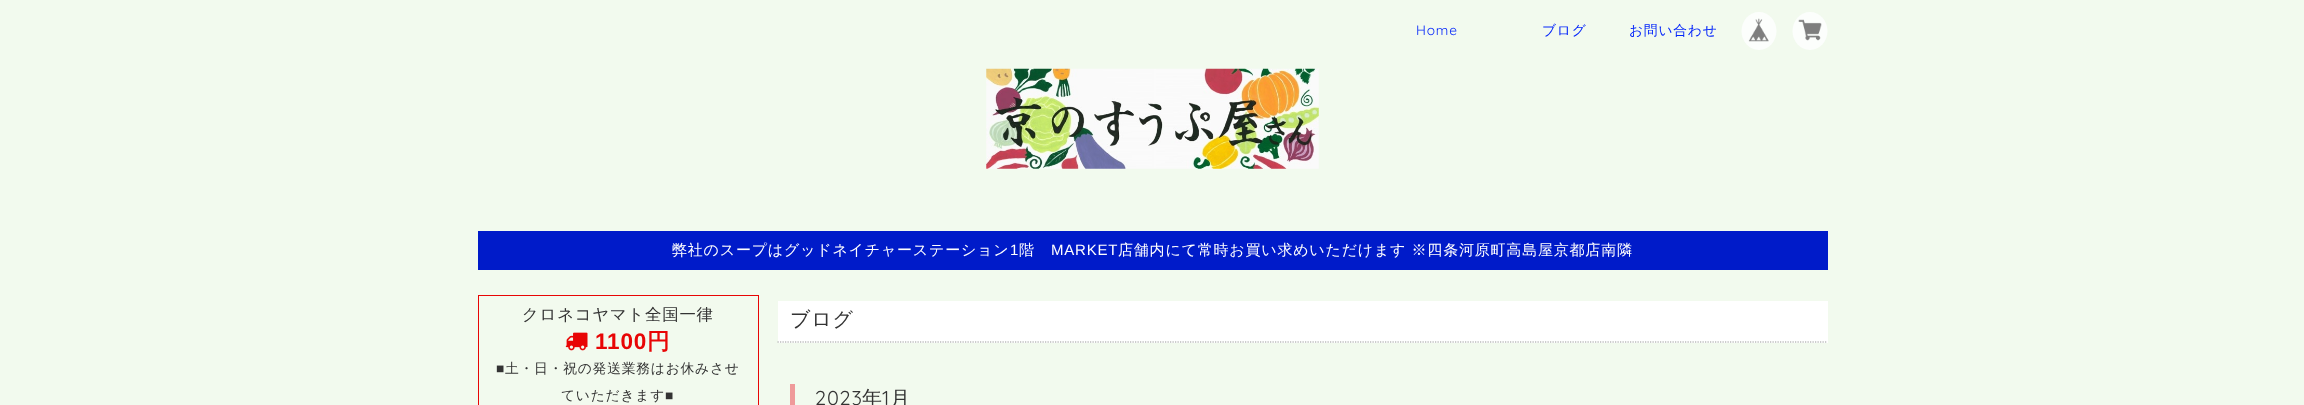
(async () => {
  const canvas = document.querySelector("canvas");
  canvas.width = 2304;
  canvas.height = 405;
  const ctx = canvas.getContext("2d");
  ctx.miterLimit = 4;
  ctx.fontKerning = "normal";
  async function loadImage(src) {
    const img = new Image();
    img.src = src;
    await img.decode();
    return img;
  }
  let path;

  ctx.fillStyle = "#f2faee";
  ctx.fillRect(0, 0, 2304, 405);
  ctx.fillStyle = "#fcfefc";
  ctx.beginPath();
  ctx.ellipse(1759, 31, 17.5, 19, 0, 0, Math.PI * 2);
  ctx.fill();
  ctx.drawImage(await loadImage("img/1.png"), 1748, 18, 21, 24);
  ctx.beginPath();
  ctx.ellipse(1810, 31, 17.5, 19, 0, 0, Math.PI * 2);
  ctx.fill();
  ctx.drawImage(await loadImage("img/2.png"), 1798, 19, 24, 22);
  ctx.drawImage(await loadImage("img/3.png"), 986, 68, 333, 101);
  ctx.fillStyle = "#001bc9";
  ctx.fillRect(478, 231, 1350, 39);
  ctx.strokeStyle = "#e80505";
  ctx.strokeRect(478.5, 295.5, 280, 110);
  ctx.drawImage(await loadImage("img/4.png"), 565, 332, 23, 19);
  ctx.fillStyle = "#ffffff";
  ctx.fillRect(778, 301, 1050, 42);
  path = new Path2D("M777.5 342H1827.5");
  ctx.strokeStyle = "#999999";
  ctx.lineWidth = 1.2;
  ctx.setLineDash([1.25, 1.25]);
  ctx.stroke(path);
  ctx.fillStyle = "#ef9a9a";
  ctx.fillRect(790, 384, 5, 21);
  ctx.letterSpacing = "0.8px";
  ctx.font = "300 13.75px Quicksand";
  ctx.fillStyle = "#0526fa";
  ctx.fillText("Home", 1416, 35);
  ctx.font = "500 13.75px WenQuanYi Zen Hei";
  ctx.fillText("ブログ", 1542, 35);
  ctx.fillText("お問い合わせ", 1629, 35);
  ctx.font = "500 15px WenQuanYi Zen Hei";
  ctx.fillStyle = "#ffffff";
  ctx.fillText("弊社のスープはグッドネイチャーステーション", 672, 255);
  ctx.font = "15px Liberation Sans";
  ctx.fillText("1", 1010, 255);
  ctx.font = "500 15px WenQuanYi Zen Hei";
  ctx.fillText("階", 1019, 255);
  ctx.font = "15px Liberation Sans";
  ctx.fillText("MARKET", 1051, 255);
  ctx.font = "500 15px WenQuanYi Zen Hei";
  ctx.fillText("店舗内にて常時お買い求めいただけます ※四条河原町高島屋京都店南隣", 1118, 255);
  ctx.font = "500 16.4px WenQuanYi Zen Hei";
  ctx.fillStyle = "#333333";
  ctx.fillText("クロネコヤマト全国一律", 522, 320);
  ctx.font = "bold 22.5px Liberation Sans";
  ctx.fillStyle = "#e80505";
  ctx.fillText("1100", 595, 349);
  ctx.font = "bold 22.5px WenQuanYi Zen Hei";
  ctx.fillText("円", 647, 349);
  ctx.font = "13.75px Liberation Sans";
  ctx.fillStyle = "#333333";
  ctx.fillText("■", 496, 373);
  ctx.font = "500 13.75px WenQuanYi Zen Hei";
  ctx.fillText("土・日・祝の発送業務はお休みさせ", 505, 373);
  ctx.fillText("ていただきます", 561, 400);
  ctx.font = "13.75px Liberation Sans";
  ctx.fillText("■", 665, 400);
  ctx.font = "500 20px WenQuanYi Zen Hei";
  ctx.fillText("ブログ", 790, 326);
  ctx.font = "300 20px Quicksand";
  ctx.fillText("2023", 815, 405);
  ctx.font = "500 20px WenQuanYi Zen Hei";
  ctx.fillText("年", 862, 405);
  ctx.font = "300 20px Quicksand";
  ctx.fillText("1", 882, 405);
  ctx.font = "500 20px WenQuanYi Zen Hei";
  ctx.fillText("月", 890, 405);
})();
